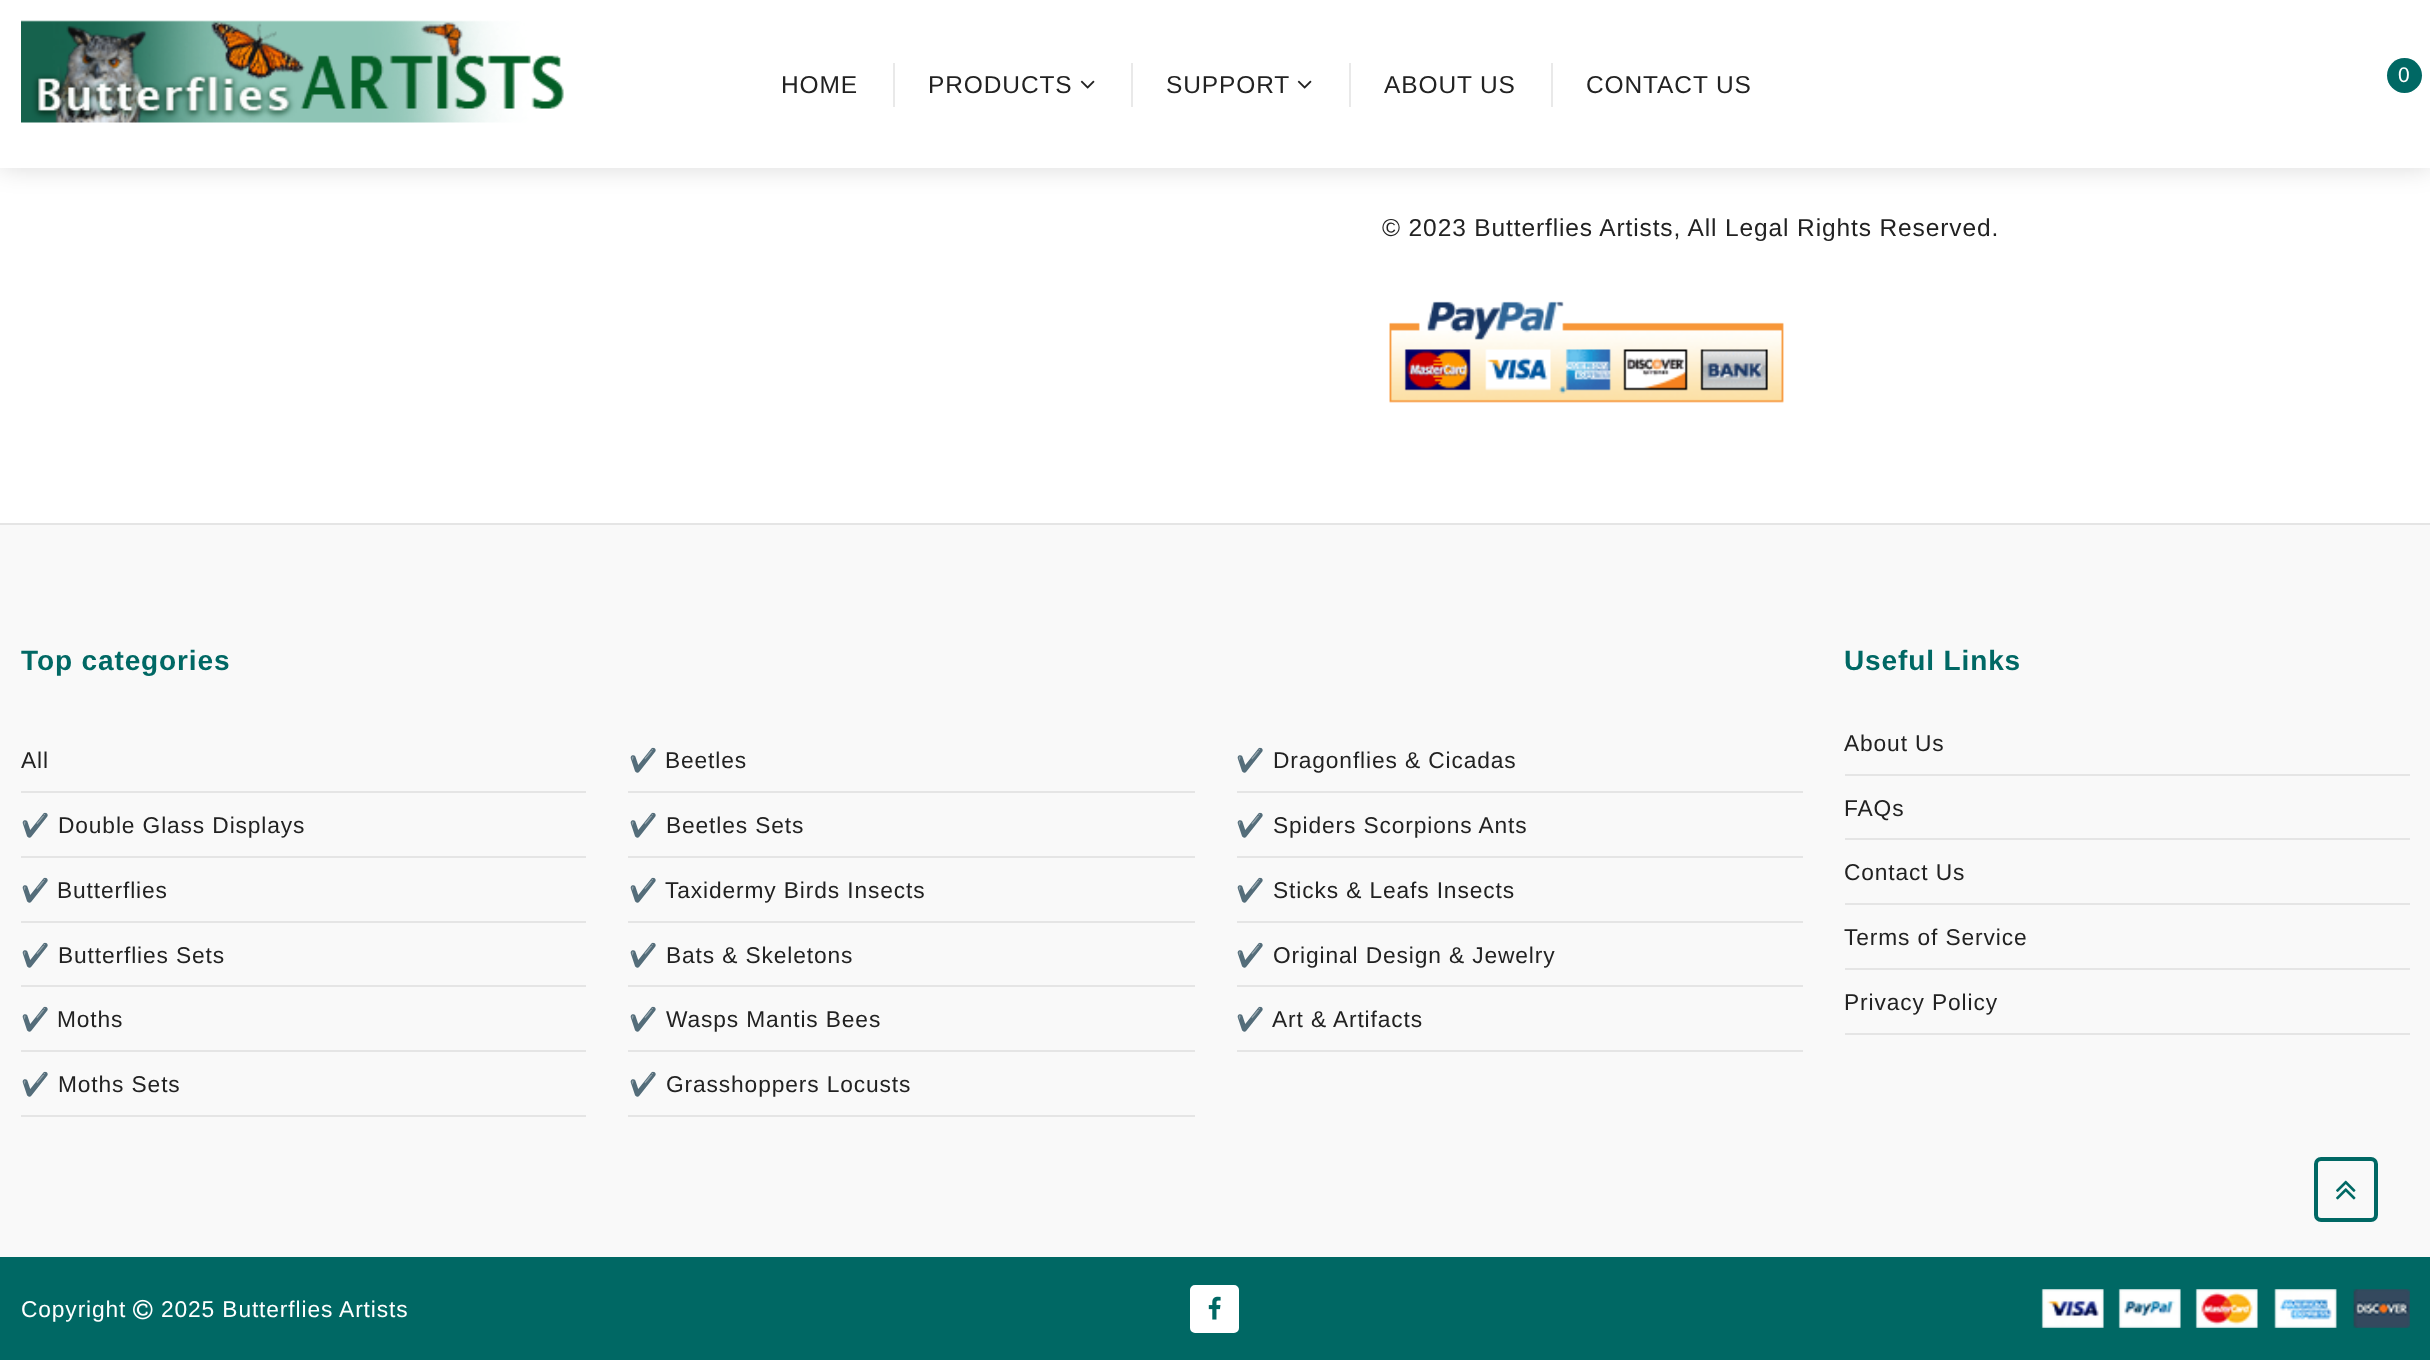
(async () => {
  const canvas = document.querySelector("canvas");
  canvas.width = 2430;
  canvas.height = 1360;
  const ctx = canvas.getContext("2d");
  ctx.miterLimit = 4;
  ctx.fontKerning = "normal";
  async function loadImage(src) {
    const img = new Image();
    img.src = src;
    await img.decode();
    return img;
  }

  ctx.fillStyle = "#ffffff";
  ctx.fillRect(0, 0, 2430, 1360);
  ctx.fillStyle = "rgba(0, 0, 0, 0.15)";
  ctx.filter = "blur(13px)";
  ctx.beginPath();
  ctx.rect(0, 0, 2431, 168);
  ctx.fill();
  ctx.filter = "none";
  ctx.fillStyle = "#ffffff";
  ctx.fillRect(0, 0, 2430, 168);
  ctx.drawImage(await loadImage("img/1.png"), 21, 20, 543, 103);
  ctx.fillStyle = "#e9e9e9";
  ctx.fillRect(893, 63, 2, 44);
  ctx.drawImage(await loadImage("img/2.png"), 1080, 80, 15, 9);
  ctx.fillRect(1131, 63, 2, 44);
  ctx.drawImage(await loadImage("img/2.png"), 1297, 80, 15, 9);
  ctx.fillRect(1349, 63, 2, 44);
  ctx.fillRect(1551, 63, 2, 44);
  ctx.fillStyle = "#006864";
  ctx.beginPath();
  ctx.arc(2404.5, 75.5, 17.5, 0, Math.PI * 2);
  ctx.fill();
  ctx.drawImage(await loadImage("img/3.png"), 1389, 301, 395, 102);
  for (const [x, y, w, h, color] of [
    [0, 525, 2430, 732, "#f9f9f9"],
    [0, 523, 2430, 2, "#e5e5e5"],
    [21, 791, 565, 2, "#e5e5e5"],
    [21, 856, 565, 2, "#e5e5e5"],
    [21, 921, 565, 2, "#e5e5e5"],
    [21, 985, 565, 2, "#e5e5e5"],
    [21, 1050, 565, 2, "#e5e5e5"],
    [21, 1115, 565, 2, "#e5e5e5"],
    [628, 791, 567, 2, "#e5e5e5"],
    [628, 856, 567, 2, "#e5e5e5"],
    [628, 921, 567, 2, "#e5e5e5"],
    [628, 985, 567, 2, "#e5e5e5"],
    [628, 1050, 567, 2, "#e5e5e5"],
    [628, 1115, 567, 2, "#e5e5e5"],
    [1237, 791, 566, 2, "#e5e5e5"],
    [1237, 856, 566, 2, "#e5e5e5"],
    [1237, 921, 566, 2, "#e5e5e5"],
    [1237, 985, 566, 2, "#e5e5e5"],
    [1237, 1050, 566, 2, "#e5e5e5"],
    [1845, 774, 565, 2, "#e5e5e5"],
    [1845, 838, 565, 2, "#e5e5e5"],
    [1845, 903, 565, 2, "#e5e5e5"],
    [1845, 968, 565, 2, "#e5e5e5"],
    [1845, 1033, 565, 2, "#e5e5e5"],
  ]) {
    ctx.fillStyle = color;
    ctx.fillRect(x, y, w, h);
  }
  ctx.beginPath();
  ctx.roundRect(2316, 1159, 60, 61, 5);
  ctx.strokeStyle = "#006864";
  ctx.lineWidth = 4;
  ctx.stroke();
  ctx.drawImage(await loadImage("img/4.png"), 2336, 1180, 20, 20);
  ctx.fillStyle = "#006864";
  ctx.fillRect(0, 1257, 2430, 103);
  ctx.drawImage(await loadImage("img/5.png"), 133, 1299, 20, 21);
  ctx.fillStyle = "#ffffff";
  ctx.beginPath();
  ctx.roundRect(1189, 1284, 51, 50, 6);
  ctx.fill();
  ctx.lineWidth = 2;
  ctx.stroke();
  ctx.drawImage(await loadImage("img/6.png"), 1208, 1296, 13, 24);
  ctx.drawImage(await loadImage("img/7.png"), 2041, 1289, 369, 39);
  ctx.letterSpacing = "0.88px";
  ctx.font = "24.5px Liberation Sans";
  ctx.fillStyle = "#222222";
  for (const [text, x, y] of [
    ["HOME", 781, 93],
    ["PRODUCTS", 928, 93],
    ["SUPPORT", 1166, 93],
    ["ABOUT US", 1384, 93],
    ["CONTACT US", 1586, 93],
  ]) {
    ctx.fillText(text, x, y);
  }
  ctx.font = "21px Liberation Sans";
  ctx.fillStyle = "#ffffff";
  ctx.fillText("0", 2398, 82);
  ctx.font = "24.5px Liberation Sans";
  ctx.fillStyle = "#222222";
  ctx.fillText("© 2023 Butterflies Artists, All Legal Rights Reserved.", 1382, 236);
  ctx.font = "bold 28px Liberation Sans";
  ctx.fillStyle = "#006864";
  ctx.fillText("Top categories", 21, 670);
  ctx.font = "22.75px Liberation Sans";
  ctx.fillStyle = "#222222";
  ctx.fillText("All", 21, 768);
  ctx.font = "22.75px Noto Color Emoji";
  ctx.fillText("✔️", 21, 833);
  ctx.font = "22.75px Liberation Sans";
  ctx.fillText("Double Glass Displays", 58, 833);
  ctx.font = "22.75px Noto Color Emoji";
  ctx.fillText("✔️", 21, 898);
  ctx.font = "22.75px Liberation Sans";
  ctx.fillText("Butterflies", 57, 898);
  ctx.font = "22.75px Noto Color Emoji";
  ctx.fillText("✔️", 21, 963);
  ctx.font = "22.75px Liberation Sans";
  ctx.fillText("Butterflies Sets", 58, 963);
  ctx.font = "22.75px Noto Color Emoji";
  ctx.fillText("✔️", 21, 1027);
  ctx.font = "22.75px Liberation Sans";
  ctx.fillText("Moths", 57, 1027);
  ctx.font = "22.75px Noto Color Emoji";
  ctx.fillText("✔️", 21, 1092);
  ctx.font = "22.75px Liberation Sans";
  ctx.fillText("Moths Sets", 58, 1092);
  ctx.font = "22.75px Noto Color Emoji";
  ctx.fillText("✔️", 629, 768);
  ctx.font = "22.75px Liberation Sans";
  ctx.fillText("Beetles", 665, 768);
  ctx.font = "22.75px Noto Color Emoji";
  ctx.fillText("✔️", 629, 833);
  ctx.font = "22.75px Liberation Sans";
  ctx.fillText("Beetles Sets", 666, 833);
  ctx.font = "22.75px Noto Color Emoji";
  ctx.fillText("✔️", 629, 898);
  ctx.font = "22.75px Liberation Sans";
  ctx.fillText("Taxidermy Birds Insects", 665, 898);
  ctx.font = "22.75px Noto Color Emoji";
  ctx.fillText("✔️", 629, 963);
  ctx.font = "22.75px Liberation Sans";
  ctx.fillText("Bats & Skeletons", 666, 963);
  ctx.font = "22.75px Noto Color Emoji";
  ctx.fillText("✔️", 629, 1027);
  ctx.font = "22.75px Liberation Sans";
  ctx.fillText("Wasps Mantis Bees", 666, 1027);
  ctx.font = "22.75px Noto Color Emoji";
  ctx.fillText("✔️", 629, 1092);
  ctx.font = "22.75px Liberation Sans";
  ctx.fillText("Grasshoppers Locusts", 666, 1092);
  ctx.font = "22.75px Noto Color Emoji";
  ctx.fillText("✔️", 1236, 768);
  ctx.font = "22.75px Liberation Sans";
  ctx.fillText("Dragonflies & Cicadas", 1273, 768);
  ctx.font = "22.75px Noto Color Emoji";
  ctx.fillText("✔️", 1236, 833);
  ctx.font = "22.75px Liberation Sans";
  ctx.fillText("Spiders Scorpions Ants", 1273, 833);
  ctx.font = "22.75px Noto Color Emoji";
  ctx.fillText("✔️", 1236, 898);
  ctx.font = "22.75px Liberation Sans";
  ctx.fillText("Sticks & Leafs Insects", 1273, 898);
  ctx.font = "22.75px Noto Color Emoji";
  ctx.fillText("✔️", 1236, 963);
  ctx.font = "22.75px Liberation Sans";
  ctx.fillText("Original Design & Jewelry", 1273, 963);
  ctx.font = "22.75px Noto Color Emoji";
  ctx.fillText("✔️", 1236, 1027);
  ctx.font = "22.75px Liberation Sans";
  ctx.fillText("Art & Artifacts", 1272, 1027);
  ctx.font = "bold 28px Liberation Sans";
  ctx.fillStyle = "#006864";
  ctx.fillText("Useful Links", 1844, 670);
  ctx.font = "22.75px Liberation Sans";
  ctx.fillStyle = "#222222";
  for (const [text, x, y] of [
    ["About Us", 1844, 751],
    ["FAQs", 1844, 816],
    ["Contact Us", 1844, 880],
    ["Terms of Service", 1844, 945],
    ["Privacy Policy", 1844, 1010],
  ]) {
    ctx.fillText(text, x, y);
  }
  ctx.fillStyle = "#ffffff";
  ctx.fillText("Copyright", 21, 1317);
  ctx.fillText("2025 Butterflies Artists", 161, 1317);
})();
